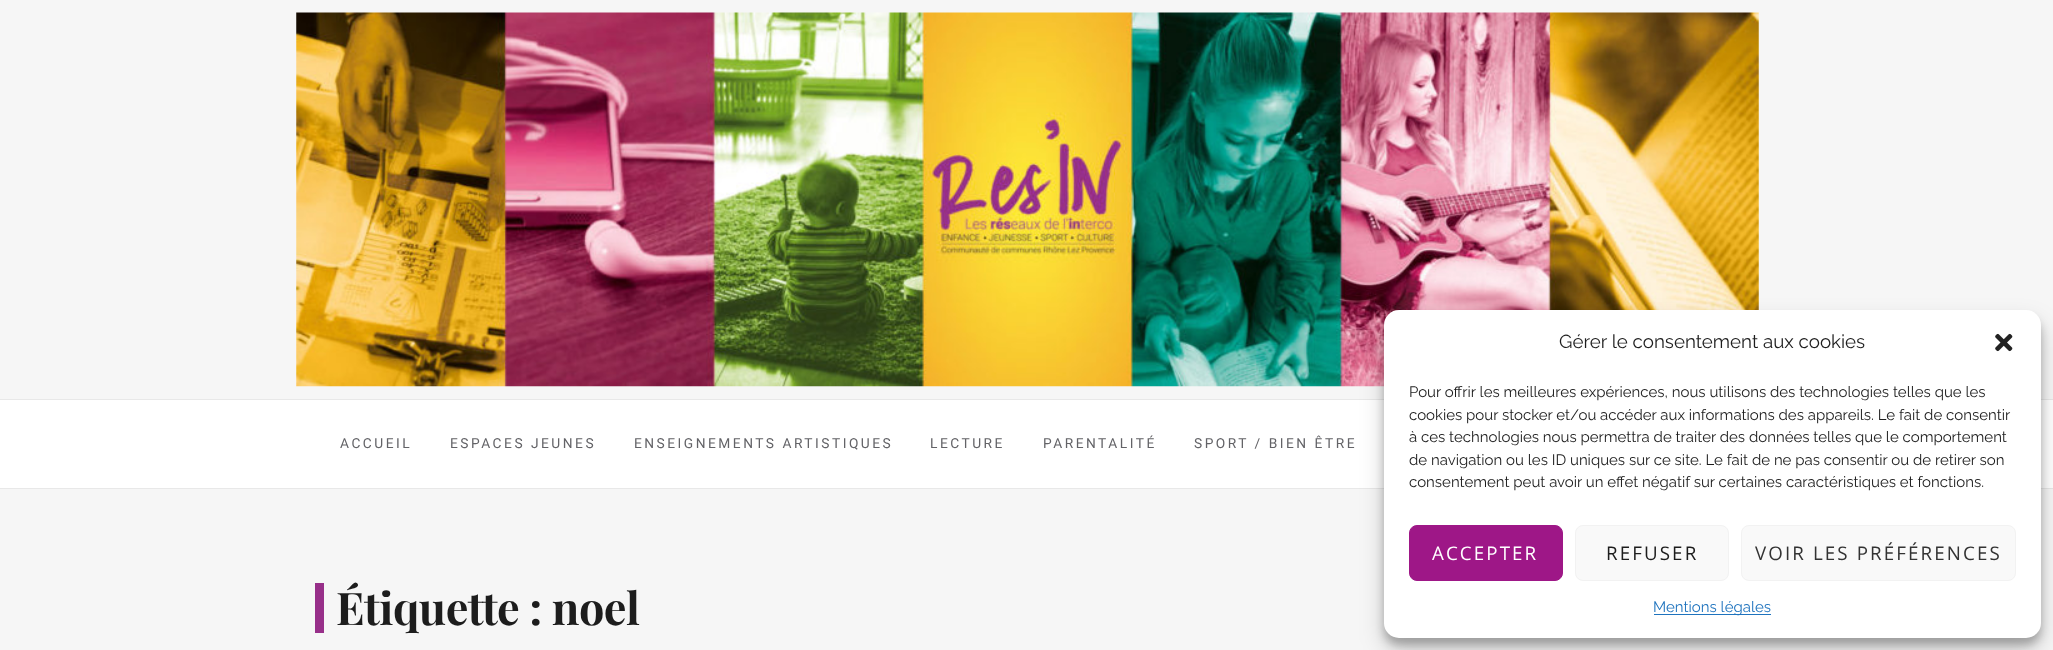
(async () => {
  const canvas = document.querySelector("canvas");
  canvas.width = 2053;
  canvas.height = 650;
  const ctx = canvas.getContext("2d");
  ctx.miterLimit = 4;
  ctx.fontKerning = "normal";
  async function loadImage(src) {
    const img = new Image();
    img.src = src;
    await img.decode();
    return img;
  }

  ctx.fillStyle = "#f6f6f6";
  ctx.fillRect(0, 0, 2053, 650);
  ctx.drawImage(await loadImage("img/1.png"), 296, 12, 1463, 375);
  for (const [x, y, w, h, color] of [
    [0, 400, 2053, 88, "#ffffff"],
    [0, 399, 2053, 1, "#e8e8e8"],
    [0, 488, 2053, 1, "#e8e8e8"],
  ]) {
    ctx.fillStyle = color;
    ctx.fillRect(x, y, w, h);
  }
  ctx.fillStyle = "rgba(0, 0, 0, 0.23)";
  ctx.filter = "blur(4px)";
  ctx.beginPath();
  ctx.roundRect(1384, 318, 657, 327, 15);
  ctx.fill();
  ctx.filter = "none";
  ctx.fillStyle = "rgba(0, 0, 0, 0.19)";
  ctx.filter = "blur(12.5px)";
  ctx.beginPath();
  ctx.roundRect(1384, 323, 657, 327, 15);
  ctx.fill();
  ctx.filter = "none";
  ctx.fillStyle = "#ffffff";
  ctx.beginPath();
  ctx.roundRect(1384, 310, 657, 328, 15);
  ctx.fill();
  ctx.drawImage(await loadImage("img/2.png"), 1995, 333, 18, 19);
  ctx.fillStyle = "#9e1787";
  ctx.beginPath();
  ctx.roundRect(1409.5, 525.5, 153, 55, 7.5);
  ctx.fill();
  ctx.strokeStyle = "#9e1787";
  ctx.stroke();
  ctx.fillStyle = "#f9f9f9";
  ctx.beginPath();
  ctx.roundRect(1575.5, 525.5, 153, 55, 7.5);
  ctx.fill();
  ctx.strokeStyle = "#f2f2f2";
  ctx.stroke();
  ctx.beginPath();
  ctx.roundRect(1741.5, 525.5, 274, 55, 7.5);
  ctx.fill();
  ctx.stroke();
  ctx.fillStyle = "#1e73be";
  ctx.fillRect(1654, 614, 117, 1);
  ctx.fillStyle = "#972f89";
  ctx.fillRect(315, 583, 9, 50);
  ctx.letterSpacing = "2.5px";
  ctx.font = "13.75px Roboto";
  ctx.fillStyle = "#636367";
  for (const [text, x, y] of [
    ["ACCUEIL", 340, 448],
    ["ESPACES JEUNES", 450, 448],
    ["ENSEIGNEMENTS ARTISTIQUES", 634, 448],
    ["LECTURE", 930, 448],
    ["PARENTALITÉ", 1043, 448],
    ["SPORT / BIEN ÊTRE", 1194, 448],
  ]) {
    ctx.fillText(text, x, y);
  }
  ctx.letterSpacing = "0px";
  ctx.font = "18.75px Raleway";
  ctx.fillStyle = "#1d1d1d";
  ctx.fillText("Gérer le consentement aux cookies", 1559, 348);
  ctx.font = "15px Raleway";
  for (const [text, x, y] of [
    ["Pour offrir les meilleures expériences, nous utilisons des technologies telles que les", 1409, 397],
    ["cookies pour stocker et/ou accéder aux informations des appareils. Le fait de consentir", 1409, 420],
    ["à ces technologies nous permettra de traiter des données telles que le comportement", 1409, 442],
    ["de navigation ou les ID uniques sur ce site. Le fait de ne pas consentir ou de retirer son", 1409, 465],
    ["consentement peut avoir un effet négatif sur certaines caractéristiques et fonctions.", 1409, 487],
  ]) {
    ctx.fillText(text, x, y);
  }
  ctx.letterSpacing = "2.1px";
  ctx.font = "18.75px Open Sans";
  ctx.fillStyle = "#ffffff";
  ctx.fillText("ACCEPTER", 1432, 560);
  ctx.fillStyle = "#1d1d1d";
  ctx.fillText("REFUSER", 1606, 560);
  ctx.fillStyle = "#333333";
  ctx.fillText("VOIR LES PRÉFÉRENCES", 1755, 560);
  ctx.letterSpacing = "0px";
  ctx.font = "15px Raleway";
  ctx.fillStyle = "#1e73be";
  ctx.fillText("Mentions légales", 1653, 612);
  ctx.letterSpacing = "-0.5px";
  ctx.font = "bold 45px Playfair Display";
  ctx.fillStyle = "#1d1d1d";
  ctx.fillText("Étiquette : noel", 336, 625);
})();
